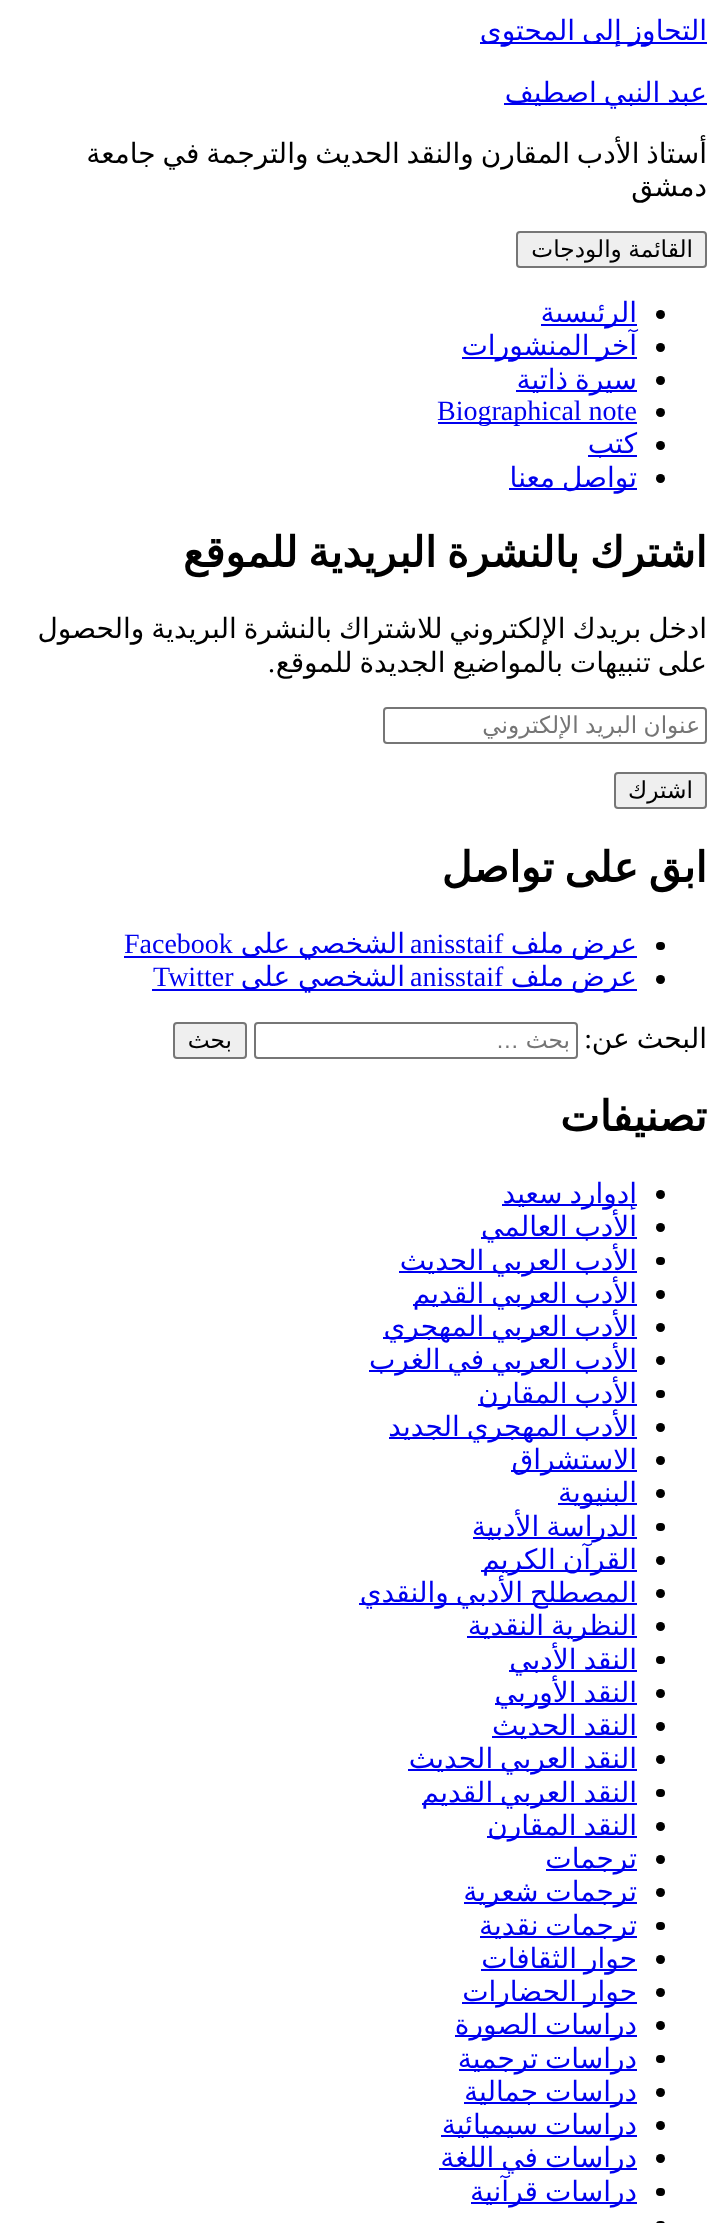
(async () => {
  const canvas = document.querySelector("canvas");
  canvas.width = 720;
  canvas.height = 2223;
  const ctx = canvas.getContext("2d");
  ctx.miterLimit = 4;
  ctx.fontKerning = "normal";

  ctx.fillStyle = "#ffffff";
  ctx.fillRect(0, 0, 720, 2223);
  ctx.fillStyle = "#0000ee";
  ctx.fillRect(480, 42, 227, 2);
  ctx.fillRect(504, 103, 203, 2);
  ctx.fillStyle = "#efefef";
  ctx.beginPath();
  ctx.roundRect(517, 232, 189, 35, 3);
  ctx.fill();
  ctx.strokeStyle = "#767676";
  ctx.lineWidth = 2;
  ctx.stroke();
  ctx.fillStyle = "#000000";
  ctx.beginPath();
  ctx.arc(660.5, 314.5, 4.5, 0, Math.PI * 2);
  ctx.fill();
  ctx.fillStyle = "#0000ee";
  ctx.fillRect(541, 324, 96, 2);
  ctx.fillStyle = "#000000";
  ctx.beginPath();
  ctx.arc(660.5, 347.5, 4.5, 0, Math.PI * 2);
  ctx.fill();
  ctx.fillStyle = "#0000ee";
  ctx.fillRect(462, 357, 175, 2);
  ctx.fillStyle = "#000000";
  ctx.beginPath();
  ctx.arc(660.5, 380.5, 4.5, 0, Math.PI * 2);
  ctx.fill();
  ctx.fillStyle = "#0000ee";
  ctx.fillRect(516, 390, 121, 2);
  ctx.fillStyle = "#000000";
  ctx.beginPath();
  ctx.arc(660.5, 412.5, 4.5, 0, Math.PI * 2);
  ctx.fill();
  ctx.fillStyle = "#0000ee";
  ctx.fillRect(438, 422, 199, 2);
  ctx.fillStyle = "#000000";
  ctx.beginPath();
  ctx.arc(660.5, 445.5, 4.5, 0, Math.PI * 2);
  ctx.fill();
  ctx.fillStyle = "#0000ee";
  ctx.fillRect(588, 455, 49, 2);
  ctx.fillStyle = "#000000";
  ctx.beginPath();
  ctx.arc(660.5, 478.5, 4.5, 0, Math.PI * 2);
  ctx.fill();
  ctx.fillStyle = "#0000ee";
  ctx.fillRect(509, 488, 128, 2);
  ctx.beginPath();
  ctx.roundRect(384, 708, 322, 35, 3);
  ctx.stroke();
  ctx.fillStyle = "#efefef";
  ctx.beginPath();
  ctx.roundRect(615, 773, 91, 35, 3);
  ctx.fill();
  ctx.stroke();
  ctx.fillStyle = "#000000";
  ctx.beginPath();
  ctx.roundRect(656, 942, 9, 8, 4);
  ctx.fill();
  ctx.fillStyle = "#0000ee";
  ctx.fillRect(124, 956, 513, 2);
  ctx.fillStyle = "#000000";
  ctx.beginPath();
  ctx.arc(660.5, 979.5, 4.5, 0, Math.PI * 2);
  ctx.fill();
  ctx.fillStyle = "#0000ee";
  ctx.fillRect(152, 989, 485, 2);
  ctx.beginPath();
  ctx.roundRect(255, 1023, 322, 35, 3);
  ctx.stroke();
  ctx.fillStyle = "#efefef";
  ctx.beginPath();
  ctx.roundRect(174, 1023, 72, 35, 3);
  ctx.fill();
  ctx.stroke();
  ctx.fillStyle = "#000000";
  ctx.beginPath();
  ctx.arc(660.5, 1194.5, 4.5, 0, Math.PI * 2);
  ctx.fill();
  ctx.fillStyle = "#0000ee";
  ctx.fillRect(502, 1204, 135, 2);
  ctx.fillStyle = "#000000";
  ctx.beginPath();
  ctx.arc(660.5, 1227.5, 4.5, 0, Math.PI * 2);
  ctx.fill();
  ctx.fillStyle = "#0000ee";
  ctx.fillRect(481, 1237, 156, 2);
  ctx.fillStyle = "#000000";
  ctx.beginPath();
  ctx.roundRect(656, 1257, 9, 8, 4);
  ctx.fill();
  ctx.fillStyle = "#0000ee";
  ctx.fillRect(399, 1271, 238, 2);
  ctx.fillStyle = "#000000";
  ctx.beginPath();
  ctx.arc(660.5, 1294.5, 4.5, 0, Math.PI * 2);
  ctx.fill();
  ctx.fillStyle = "#0000ee";
  ctx.fillRect(413, 1304, 224, 2);
  ctx.fillStyle = "#000000";
  ctx.beginPath();
  ctx.arc(660.5, 1327.5, 4.5, 0, Math.PI * 2);
  ctx.fill();
  ctx.fillStyle = "#0000ee";
  ctx.fillRect(383, 1337, 254, 2);
  ctx.fillStyle = "#000000";
  ctx.beginPath();
  ctx.arc(660.5, 1360.5, 4.5, 0, Math.PI * 2);
  ctx.fill();
  ctx.fillStyle = "#0000ee";
  ctx.fillRect(369, 1370, 268, 2);
  ctx.fillStyle = "#000000";
  ctx.beginPath();
  ctx.roundRect(656, 1390, 9, 8, 4);
  ctx.fill();
  ctx.fillStyle = "#0000ee";
  ctx.fillRect(478, 1404, 159, 2);
  ctx.fillStyle = "#000000";
  ctx.beginPath();
  ctx.arc(660.5, 1427.5, 4.5, 0, Math.PI * 2);
  ctx.fill();
  ctx.fillStyle = "#0000ee";
  ctx.fillRect(389, 1437, 248, 2);
  ctx.fillStyle = "#000000";
  ctx.beginPath();
  ctx.arc(660.5, 1460.5, 4.5, 0, Math.PI * 2);
  ctx.fill();
  ctx.fillStyle = "#0000ee";
  ctx.fillRect(511, 1470, 126, 2);
  ctx.fillStyle = "#000000";
  ctx.beginPath();
  ctx.arc(660.5, 1493.5, 4.5, 0, Math.PI * 2);
  ctx.fill();
  ctx.fillStyle = "#0000ee";
  ctx.fillRect(558, 1503, 79, 2);
  ctx.fillStyle = "#000000";
  ctx.beginPath();
  ctx.roundRect(656, 1523, 9, 8, 4);
  ctx.fill();
  ctx.fillStyle = "#0000ee";
  ctx.fillRect(473, 1537, 164, 2);
  ctx.fillStyle = "#000000";
  ctx.beginPath();
  ctx.arc(660.5, 1560.5, 4.5, 0, Math.PI * 2);
  ctx.fill();
  ctx.fillStyle = "#0000ee";
  ctx.fillRect(481, 1570, 156, 2);
  ctx.fillStyle = "#000000";
  ctx.beginPath();
  ctx.arc(660.5, 1593.5, 4.5, 0, Math.PI * 2);
  ctx.fill();
  ctx.fillStyle = "#0000ee";
  ctx.fillRect(359, 1603, 278, 2);
  ctx.fillStyle = "#000000";
  ctx.beginPath();
  ctx.arc(660.5, 1626.5, 4.5, 0, Math.PI * 2);
  ctx.fill();
  ctx.fillStyle = "#0000ee";
  ctx.fillRect(467, 1636, 170, 2);
  ctx.fillStyle = "#000000";
  ctx.beginPath();
  ctx.roundRect(656, 1656, 9, 8, 4);
  ctx.fill();
  ctx.fillStyle = "#0000ee";
  ctx.fillRect(509, 1670, 128, 2);
  ctx.fillStyle = "#000000";
  ctx.beginPath();
  ctx.arc(660.5, 1693.5, 4.5, 0, Math.PI * 2);
  ctx.fill();
  ctx.fillStyle = "#0000ee";
  ctx.fillRect(495, 1703, 142, 2);
  ctx.fillStyle = "#000000";
  ctx.beginPath();
  ctx.arc(660.5, 1726.5, 4.5, 0, Math.PI * 2);
  ctx.fill();
  ctx.fillStyle = "#0000ee";
  ctx.fillRect(492, 1736, 145, 2);
  ctx.fillStyle = "#000000";
  ctx.beginPath();
  ctx.arc(660.5, 1759.5, 4.5, 0, Math.PI * 2);
  ctx.fill();
  ctx.fillStyle = "#0000ee";
  ctx.fillRect(408, 1769, 229, 2);
  ctx.fillStyle = "#000000";
  ctx.beginPath();
  ctx.roundRect(656, 1789, 9, 8, 4);
  ctx.fill();
  ctx.fillStyle = "#0000ee";
  ctx.fillRect(422, 1803, 215, 2);
  ctx.fillStyle = "#000000";
  ctx.beginPath();
  ctx.arc(660.5, 1826.5, 4.5, 0, Math.PI * 2);
  ctx.fill();
  ctx.fillStyle = "#0000ee";
  ctx.fillRect(487, 1836, 150, 2);
  ctx.fillStyle = "#000000";
  ctx.beginPath();
  ctx.arc(660.5, 1859.5, 4.5, 0, Math.PI * 2);
  ctx.fill();
  ctx.fillStyle = "#0000ee";
  ctx.fillRect(546, 1869, 91, 2);
  ctx.fillStyle = "#000000";
  ctx.beginPath();
  ctx.arc(660.5, 1892.5, 4.5, 0, Math.PI * 2);
  ctx.fill();
  ctx.fillStyle = "#0000ee";
  ctx.fillRect(464, 1902, 173, 2);
  ctx.fillStyle = "#000000";
  ctx.beginPath();
  ctx.roundRect(656, 1922, 9, 8, 4);
  ctx.fill();
  ctx.fillStyle = "#0000ee";
  ctx.fillRect(480, 1936, 157, 2);
  ctx.fillStyle = "#000000";
  ctx.beginPath();
  ctx.arc(660.5, 1959.5, 4.5, 0, Math.PI * 2);
  ctx.fill();
  ctx.fillStyle = "#0000ee";
  ctx.fillRect(481, 1969, 156, 2);
  ctx.fillStyle = "#000000";
  ctx.beginPath();
  ctx.arc(660.5, 1992.5, 4.5, 0, Math.PI * 2);
  ctx.fill();
  ctx.fillStyle = "#0000ee";
  ctx.fillRect(462, 2002, 175, 2);
  ctx.fillStyle = "#000000";
  ctx.beginPath();
  ctx.arc(660.5, 2025.5, 4.5, 0, Math.PI * 2);
  ctx.fill();
  ctx.fillStyle = "#0000ee";
  ctx.fillRect(455, 2035, 182, 2);
  ctx.fillStyle = "#000000";
  ctx.beginPath();
  ctx.roundRect(656, 2055, 9, 8, 4);
  ctx.fill();
  ctx.fillStyle = "#0000ee";
  ctx.fillRect(459, 2069, 178, 2);
  ctx.fillStyle = "#000000";
  ctx.beginPath();
  ctx.arc(660.5, 2092.5, 4.5, 0, Math.PI * 2);
  ctx.fill();
  ctx.fillStyle = "#0000ee";
  ctx.fillRect(464, 2102, 173, 2);
  ctx.fillStyle = "#000000";
  ctx.beginPath();
  ctx.arc(660.5, 2125.5, 4.5, 0, Math.PI * 2);
  ctx.fill();
  ctx.fillStyle = "#0000ee";
  ctx.fillRect(441, 2135, 196, 2);
  ctx.fillStyle = "#000000";
  ctx.beginPath();
  ctx.arc(660.5, 2158.5, 4.5, 0, Math.PI * 2);
  ctx.fill();
  ctx.fillStyle = "#0000ee";
  ctx.fillRect(439, 2168, 198, 2);
  ctx.fillStyle = "#000000";
  ctx.beginPath();
  ctx.roundRect(656, 2188, 9, 8, 4);
  ctx.fill();
  ctx.fillStyle = "#0000ee";
  ctx.fillRect(471, 2202, 166, 2);
  ctx.fillStyle = "#000000";
  ctx.beginPath();
  ctx.roundRect(656, 2221, 9, 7, 4.5);
  ctx.fill();
  ctx.wordSpacing = "-2px";
  ctx.direction = "rtl";
  ctx.font = "28px DejaVu Sans";
  ctx.fillStyle = "#0000ee";
  ctx.fillText("التجاوز إلى المحتوى", 707, 40);
  ctx.fillText("عبد النبي اصطيف", 707, 102);
  ctx.fillStyle = "#000000";
  ctx.fillText("أستاذ الأدب المقارن والنقد الحديث والترجمة في جامعة", 707, 163);
  ctx.wordSpacing = "0px";
  ctx.fillText("دمشق", 707, 196);
  ctx.wordSpacing = "-1px";
  ctx.font = "23.25px DejaVu Sans";
  ctx.fillText("القائمة والودجات", 693, 257);
  ctx.wordSpacing = "0px";
  ctx.font = "28px DejaVu Sans";
  ctx.fillStyle = "#0000ee";
  ctx.fillText("الرئيسية", 637, 322);
  ctx.wordSpacing = "-2px";
  ctx.fillText("آخر المنشورات", 637, 355);
  ctx.fillText("سيرة ذاتية", 637, 389);
  ctx.wordSpacing = "0px";
  ctx.direction = "ltr";
  ctx.font = "28px Liberation Serif";
  ctx.fillText("Biographical note", 437, 420);
  ctx.direction = "rtl";
  ctx.font = "28px DejaVu Sans";
  ctx.fillText("كتب", 637, 453);
  ctx.wordSpacing = "-2px";
  ctx.fillText("تواصل معنا", 637, 487);
  ctx.wordSpacing = "-3px";
  ctx.font = "bold 42px DejaVu Sans";
  ctx.fillStyle = "#000000";
  ctx.fillText("اشترك بالنشرة البريدية للموقع", 707, 567);
  ctx.wordSpacing = "-2px";
  ctx.font = "28px DejaVu Sans";
  ctx.fillText("ادخل بريدك الإلكتروني للاشتراك بالنشرة البريدية والحصول", 707, 638);
  ctx.fillText("على تنبيهات بالمواضيع الجديدة للموقع", 707, 672);
  ctx.wordSpacing = "0px";
  ctx.font = "28px Liberation Serif";
  ctx.fillText(".", 275, 672);
  ctx.wordSpacing = "-1px";
  ctx.font = "23.25px DejaVu Sans";
  ctx.fillStyle = "#757575";
  ctx.fillText("عنوان البريد الإلكتروني", 700, 733);
  ctx.wordSpacing = "0px";
  ctx.fillStyle = "#000000";
  ctx.fillText("اشترك", 693, 798);
  ctx.wordSpacing = "-3px";
  ctx.font = "bold 42px DejaVu Sans";
  ctx.fillText("ابق على تواصل", 707, 882);
  ctx.wordSpacing = "-2px";
  ctx.font = "28px DejaVu Sans";
  ctx.fillStyle = "#0000ee";
  ctx.fillText("عرض ملف", 637, 953);
  ctx.wordSpacing = "0px";
  ctx.direction = "ltr";
  ctx.font = "28px Liberation Serif";
  ctx.fillText("anisstaif", 410, 953);
  ctx.wordSpacing = "-1px";
  ctx.direction = "rtl";
  ctx.font = "28px DejaVu Sans";
  ctx.fillText("الشخصي على", 405, 953);
  ctx.wordSpacing = "0px";
  ctx.direction = "ltr";
  ctx.font = "28px Liberation Serif";
  ctx.fillText("Facebook", 124, 953);
  ctx.wordSpacing = "-2px";
  ctx.direction = "rtl";
  ctx.font = "28px DejaVu Sans";
  ctx.fillText("عرض ملف", 637, 986);
  ctx.wordSpacing = "0px";
  ctx.direction = "ltr";
  ctx.font = "28px Liberation Serif";
  ctx.fillText("anisstaif", 410, 986);
  ctx.wordSpacing = "-1px";
  ctx.direction = "rtl";
  ctx.font = "28px DejaVu Sans";
  ctx.fillText("الشخصي على", 405, 986);
  ctx.wordSpacing = "0px";
  ctx.direction = "ltr";
  ctx.font = "28px Liberation Serif";
  ctx.fillText("Twitter", 153, 986);
  ctx.wordSpacing = "-2px";
  ctx.direction = "rtl";
  ctx.font = "28px DejaVu Sans";
  ctx.fillStyle = "#000000";
  ctx.fillText("البحث عن", 707, 1048);
  ctx.wordSpacing = "0px";
  ctx.font = "28px Liberation Serif";
  ctx.fillText(":", 592, 1048);
  ctx.font = "23.25px DejaVu Sans";
  ctx.fillStyle = "#757575";
  ctx.fillText("بحث", 570, 1048);
  ctx.font = "23.25px Liberation Sans";
  ctx.fillText("…", 519, 1048);
  ctx.font = "23.25px DejaVu Sans";
  ctx.fillStyle = "#000000";
  ctx.fillText("بحث", 232, 1048);
  ctx.font = "bold 42px DejaVu Sans";
  ctx.fillText("تصنيفات", 707, 1131);
  ctx.wordSpacing = "-2px";
  ctx.font = "28px DejaVu Sans";
  ctx.fillStyle = "#0000ee";
  for (const [text, x, y] of [
    ["إدوارد سعيد", 637, 1203],
    ["الأدب العالمي", 637, 1236],
    ["الأدب العربي الحديث", 637, 1270],
    ["الأدب العربي القديم", 637, 1303],
    ["الأدب العربي المهجري", 637, 1336],
    ["الأدب العربي في الغرب", 637, 1369],
    ["الأدب المقارن", 637, 1403],
    ["الأدب المهجري الجديد", 637, 1436],
  ]) {
    ctx.fillText(text, x, y);
  }
  ctx.wordSpacing = "0px";
  ctx.fillText("الاستشراق", 637, 1469);
  ctx.fillText("البنيوية", 637, 1502);
  ctx.wordSpacing = "-2px";
  for (const [text, x, y] of [
    ["الدراسة الأدبية", 637, 1536],
    ["القرآن الكريم", 637, 1569],
    ["المصطلح الأدبي والنقدي", 637, 1602],
    ["النظرية النقدية", 637, 1635],
    ["النقد الأدبي", 637, 1669],
    ["النقد الأوربي", 637, 1702],
    ["النقد الحديث", 637, 1735],
    ["النقد العربي الحديث", 637, 1768],
    ["النقد العربي القديم", 637, 1802],
    ["النقد المقارن", 637, 1835],
  ]) {
    ctx.fillText(text, x, y);
  }
  ctx.wordSpacing = "0px";
  ctx.fillText("ترجمات", 637, 1868);
  ctx.wordSpacing = "-2px";
  for (const [text, x, y] of [
    ["ترجمات شعرية", 637, 1901],
    ["ترجمات نقدية", 637, 1935],
    ["حوار الثقافات", 637, 1968],
    ["حوار الحضارات", 637, 2001],
    ["دراسات الصورة", 637, 2034],
    ["دراسات ترجمية", 637, 2068],
    ["دراسات جمالية", 637, 2101],
    ["دراسات سيميائية", 637, 2134],
    ["دراسات في اللغة", 637, 2167],
    ["دراسات قرآنية", 637, 2201],
  ]) {
    ctx.fillText(text, x, y);
  }
})();
